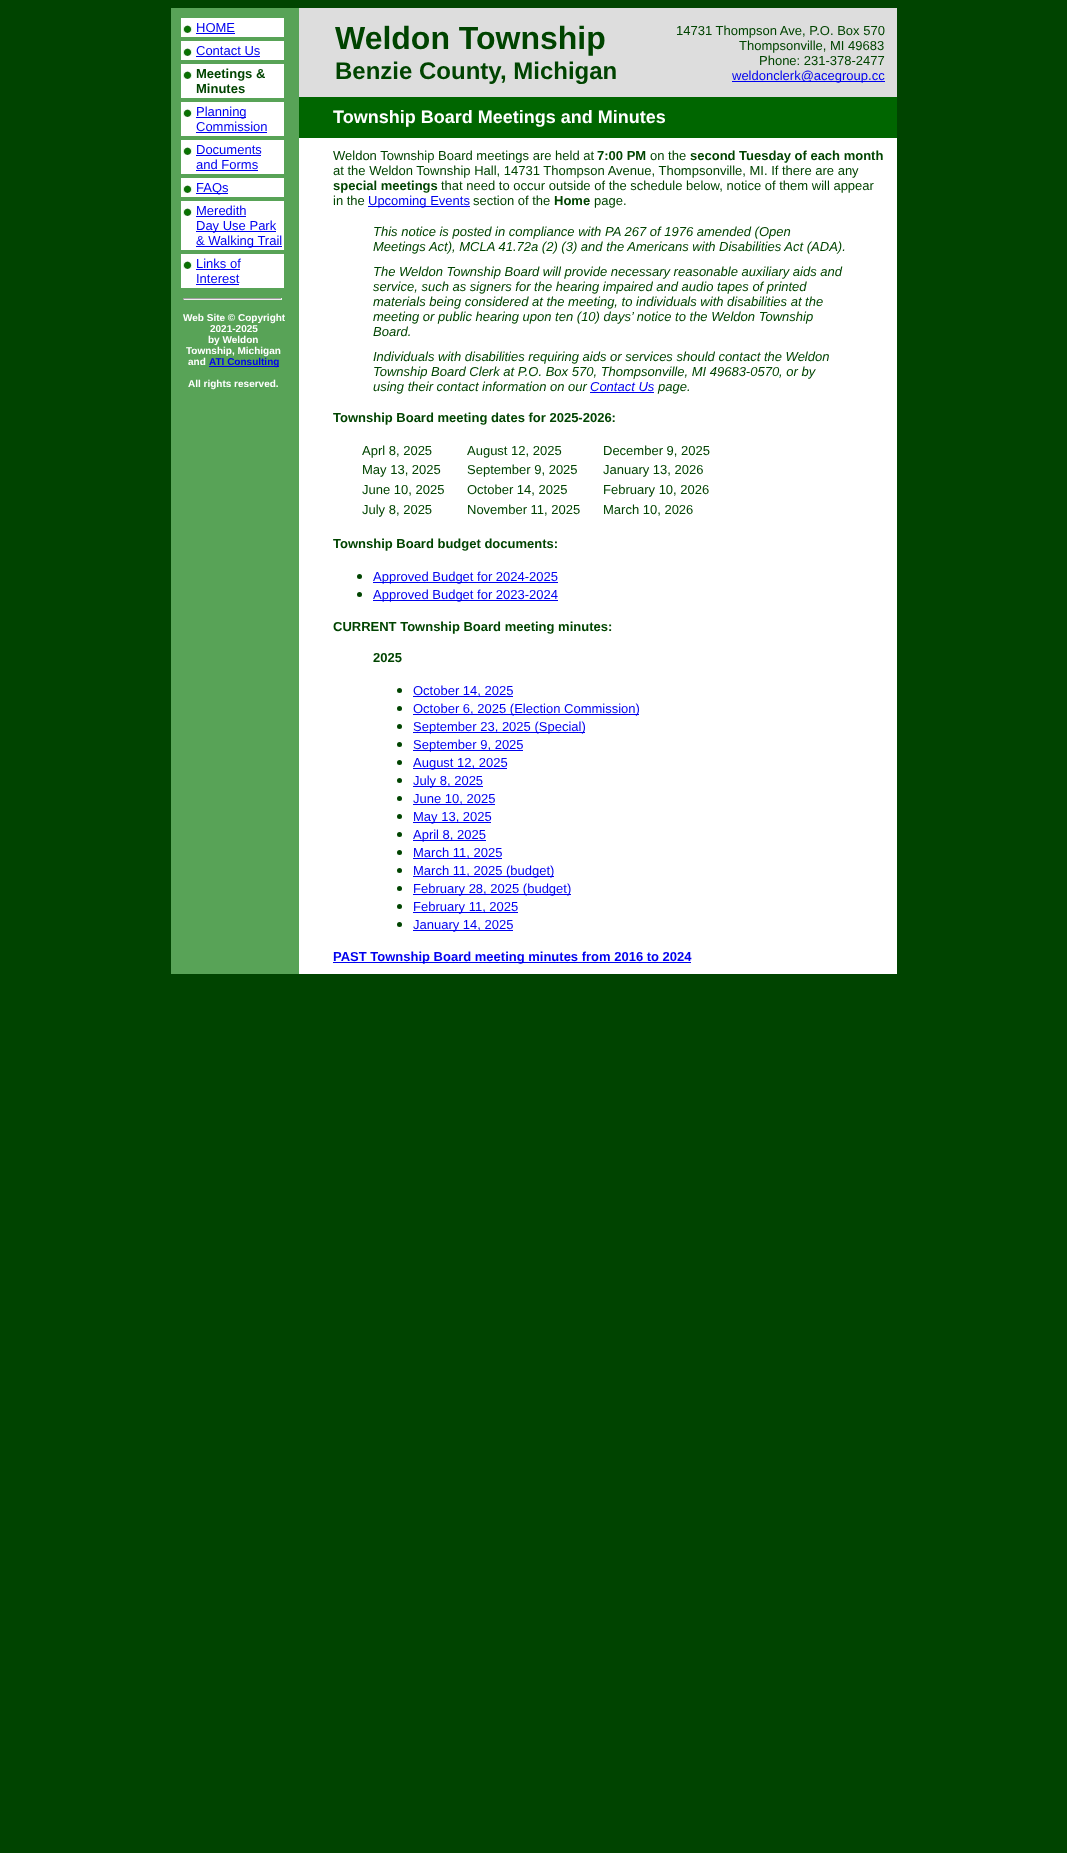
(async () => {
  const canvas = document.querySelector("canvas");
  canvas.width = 1067;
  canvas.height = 1853;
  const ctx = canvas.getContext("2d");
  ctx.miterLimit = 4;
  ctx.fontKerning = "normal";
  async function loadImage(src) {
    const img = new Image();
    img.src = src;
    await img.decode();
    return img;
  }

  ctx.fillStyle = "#004400";
  ctx.fillRect(0, 0, 1067, 1853);
  for (const [x, y, w, h, color] of [
    [299, 138, 598, 836, "#ffffff"],
    [171, 8, 128, 966, "#58a357"],
    [181, 18, 103, 19, "#ffffff"],
  ]) {
    ctx.fillStyle = color;
    ctx.fillRect(x, y, w, h);
  }
  ctx.drawImage(await loadImage("img/1.png"), 183, 25, 9, 8);
  ctx.fillStyle = "#0000ee";
  ctx.fillRect(196, 33, 39, 1);
  ctx.fillStyle = "#ffffff";
  ctx.fillRect(181, 41, 103, 19);
  ctx.drawImage(await loadImage("img/1.png"), 183, 48, 9, 8);
  ctx.fillStyle = "#0000ee";
  ctx.fillRect(196, 56, 64, 1);
  ctx.fillStyle = "#ffffff";
  ctx.fillRect(181, 64, 103, 34);
  ctx.drawImage(await loadImage("img/1.png"), 183, 71, 9, 8);
  ctx.fillRect(181, 102, 103, 34);
  ctx.drawImage(await loadImage("img/1.png"), 183, 109, 9, 8);
  for (const [x, y, w, h, color] of [
    [196, 117, 50, 1, "#0000ee"],
    [196, 132, 71, 1, "#0000ee"],
    [181, 140, 103, 34, "#ffffff"],
  ]) {
    ctx.fillStyle = color;
    ctx.fillRect(x, y, w, h);
  }
  ctx.drawImage(await loadImage("img/1.png"), 183, 147, 9, 8);
  for (const [x, y, w, h, color] of [
    [196, 155, 65, 1, "#0000ee"],
    [196, 170, 62, 1, "#0000ee"],
    [181, 178, 103, 19, "#ffffff"],
  ]) {
    ctx.fillStyle = color;
    ctx.fillRect(x, y, w, h);
  }
  ctx.drawImage(await loadImage("img/1.png"), 183, 185, 9, 8);
  ctx.fillStyle = "#0000ee";
  ctx.fillRect(196, 193, 32, 1);
  ctx.fillStyle = "#ffffff";
  ctx.fillRect(181, 201, 103, 49);
  ctx.drawImage(await loadImage("img/1.png"), 183, 208, 9, 8);
  for (const [x, y, w, h, color] of [
    [196, 216, 50, 1, "#0000ee"],
    [196, 231, 80, 1, "#0000ee"],
    [196, 246, 86, 1, "#0000ee"],
    [181, 254, 103, 34, "#ffffff"],
  ]) {
    ctx.fillStyle = color;
    ctx.fillRect(x, y, w, h);
  }
  ctx.drawImage(await loadImage("img/1.png"), 183, 261, 9, 8);
  for (const [x, y, w, h, color] of [
    [196, 269, 44, 1, "#0000ee"],
    [196, 284, 43, 1, "#0000ee"],
    [183, 298, 99, 1, "#9f9f9f"],
    [281, 298, 1, 2, "#eeeeee"],
    [183, 299, 99, 1, "#eeeeee"],
    [183, 298, 1, 2, "#9f9f9f"],
    [209, 366, 70, 1, "#0000ee"],
    [299, 8, 598, 89, "#dddddd"],
    [732, 81, 153, 1, "#0000ee"],
    [299, 97, 598, 41, "#006600"],
    [368, 206, 102, 1, "#0000ee"],
    [590, 392, 64, 1, "#0000ee"],
  ]) {
    ctx.fillStyle = color;
    ctx.fillRect(x, y, w, h);
  }
  ctx.fillStyle = "#004400";
  ctx.beginPath();
  ctx.arc(359.5, 576.5, 2.5, 0, Math.PI * 2);
  ctx.fill();
  ctx.fillStyle = "#0000ee";
  ctx.fillRect(373, 582, 185, 1);
  ctx.fillStyle = "#004400";
  ctx.beginPath();
  ctx.arc(359.5, 594.5, 2.5, 0, Math.PI * 2);
  ctx.fill();
  ctx.fillStyle = "#0000ee";
  ctx.fillRect(373, 600, 185, 1);
  ctx.fillStyle = "#004400";
  ctx.beginPath();
  ctx.arc(399.5, 690.5, 2.5, 0, Math.PI * 2);
  ctx.fill();
  ctx.fillStyle = "#0000ee";
  ctx.fillRect(413, 696, 100, 1);
  ctx.fillStyle = "#004400";
  ctx.beginPath();
  ctx.arc(399.5, 708.5, 2.5, 0, Math.PI * 2);
  ctx.fill();
  ctx.fillStyle = "#0000ee";
  ctx.fillRect(413, 714, 226, 1);
  ctx.fillStyle = "#004400";
  ctx.beginPath();
  ctx.arc(399.5, 726.5, 2.5, 0, Math.PI * 2);
  ctx.fill();
  ctx.fillStyle = "#0000ee";
  ctx.fillRect(413, 732, 172, 1);
  ctx.fillStyle = "#004400";
  ctx.beginPath();
  ctx.arc(399.5, 744.5, 2.5, 0, Math.PI * 2);
  ctx.fill();
  ctx.fillStyle = "#0000ee";
  ctx.fillRect(413, 750, 110, 1);
  ctx.fillStyle = "#004400";
  ctx.beginPath();
  ctx.arc(399.5, 762.5, 2.5, 0, Math.PI * 2);
  ctx.fill();
  ctx.fillStyle = "#0000ee";
  ctx.fillRect(413, 768, 94, 1);
  ctx.fillStyle = "#004400";
  ctx.beginPath();
  ctx.arc(399.5, 780.5, 2.5, 0, Math.PI * 2);
  ctx.fill();
  ctx.fillStyle = "#0000ee";
  ctx.fillRect(413, 786, 70, 1);
  ctx.fillStyle = "#004400";
  ctx.beginPath();
  ctx.arc(399.5, 798.5, 2.5, 0, Math.PI * 2);
  ctx.fill();
  ctx.fillStyle = "#0000ee";
  ctx.fillRect(413, 804, 82, 1);
  ctx.fillStyle = "#004400";
  ctx.beginPath();
  ctx.arc(399.5, 816.5, 2.5, 0, Math.PI * 2);
  ctx.fill();
  ctx.fillStyle = "#0000ee";
  ctx.fillRect(413, 822, 78, 1);
  ctx.fillStyle = "#004400";
  ctx.beginPath();
  ctx.arc(399.5, 834.5, 2.5, 0, Math.PI * 2);
  ctx.fill();
  ctx.fillStyle = "#0000ee";
  ctx.fillRect(413, 840, 73, 1);
  ctx.fillStyle = "#004400";
  ctx.beginPath();
  ctx.arc(399.5, 852.5, 2.5, 0, Math.PI * 2);
  ctx.fill();
  ctx.fillStyle = "#0000ee";
  ctx.fillRect(413, 858, 89, 1);
  ctx.fillStyle = "#004400";
  ctx.beginPath();
  ctx.arc(399.5, 870.5, 2.5, 0, Math.PI * 2);
  ctx.fill();
  ctx.fillStyle = "#0000ee";
  ctx.fillRect(413, 876, 141, 1);
  ctx.fillStyle = "#004400";
  ctx.beginPath();
  ctx.arc(399.5, 888.5, 2.5, 0, Math.PI * 2);
  ctx.fill();
  ctx.fillStyle = "#0000ee";
  ctx.fillRect(413, 894, 158, 1);
  ctx.fillStyle = "#004400";
  ctx.beginPath();
  ctx.arc(399.5, 906.5, 2.5, 0, Math.PI * 2);
  ctx.fill();
  ctx.fillStyle = "#0000ee";
  ctx.fillRect(413, 912, 105, 1);
  ctx.fillStyle = "#004400";
  ctx.beginPath();
  ctx.arc(399.5, 924.5, 2.5, 0, Math.PI * 2);
  ctx.fill();
  ctx.fillStyle = "#0000ee";
  ctx.fillRect(413, 930, 100, 1);
  ctx.fillRect(333, 962, 358, 1);
  ctx.font = "13px Liberation Sans";
  ctx.fillText("HOME", 196, 32);
  ctx.fillText("Contact Us", 196, 55);
  ctx.font = "bold 13px Liberation Sans";
  ctx.fillStyle = "#004400";
  ctx.fillText("Meetings &", 196, 78);
  ctx.fillText("Minutes", 196, 93);
  ctx.font = "13px Liberation Sans";
  ctx.fillStyle = "#0000ee";
  for (const [text, x, y] of [
    ["Planning", 196, 116],
    ["Commission", 196, 131],
    ["Documents", 196, 154],
    ["and Forms", 196, 169],
    ["FAQs", 196, 192],
    ["Meredith", 196, 215],
    ["Day Use Park", 196, 230],
    ["& Walking Trail", 196, 245],
    ["Links of", 196, 268],
    ["Interest", 196, 283],
  ]) {
    ctx.fillText(text, x, y);
  }
  ctx.font = "bold 10px Liberation Sans";
  ctx.fillStyle = "#ffffff";
  for (const [text, x, y] of [
    ["Web Site © Copyright", 183, 321],
    ["2021-2025", 210, 332],
    ["by Weldon", 208, 343],
    ["Township, Michigan", 186, 354],
    ["and", 188, 365],
  ]) {
    ctx.fillText(text, x, y);
  }
  ctx.fillStyle = "#0000ee";
  ctx.fillText("ATI Consulting", 209, 365);
  ctx.fillStyle = "#ffffff";
  ctx.fillText("All rights reserved.", 188, 387);
  ctx.font = "bold 32px Liberation Sans";
  ctx.fillStyle = "#004400";
  ctx.fillText("Weldon Township", 335, 49);
  ctx.font = "bold 24px Liberation Sans";
  ctx.fillText("Benzie County, Michigan", 335, 79);
  ctx.font = "13px Liberation Sans";
  for (const [text, x, y] of [
    ["14731 Thompson Ave, P.O. Box 570", 676, 35],
    ["Thompsonville, MI 49683", 739, 50],
    ["Phone: 231-378-2477", 759, 65],
  ]) {
    ctx.fillText(text, x, y);
  }
  ctx.fillStyle = "#0000ee";
  ctx.fillText("weldonclerk@acegroup.cc", 732, 80);
  ctx.font = "bold 18px Liberation Sans";
  ctx.fillStyle = "#ffffff";
  ctx.fillText("Township Board Meetings and Minutes", 333, 123);
  ctx.font = "13px Liberation Sans";
  ctx.fillStyle = "#004400";
  ctx.fillText("Weldon Township Board meetings are held at", 333, 160);
  ctx.font = "bold 13px Liberation Sans";
  ctx.fillText("7:00 PM", 597, 160);
  ctx.font = "13px Liberation Sans";
  ctx.fillText("on the", 650, 160);
  ctx.font = "bold 13px Liberation Sans";
  ctx.fillText("second Tuesday of each month", 690, 160);
  ctx.font = "13px Liberation Sans";
  ctx.fillText("at the Weldon Township Hall, 14731 Thompson Avenue, Thompsonville, MI. If there are any", 333, 175);
  ctx.font = "bold 13px Liberation Sans";
  ctx.fillText("special meetings", 333, 190);
  ctx.font = "13px Liberation Sans";
  ctx.fillText("that need to occur outside of the schedule below, notice of them will appear", 441, 190);
  ctx.fillText("in the", 333, 205);
  ctx.fillStyle = "#0000ee";
  ctx.fillText("Upcoming Events", 368, 205);
  ctx.fillStyle = "#004400";
  ctx.fillText("section of the", 473, 205);
  ctx.font = "bold 13px Liberation Sans";
  ctx.fillText("Home", 554, 205);
  ctx.font = "13px Liberation Sans";
  ctx.fillText("page.", 594, 205);
  ctx.font = "italic 13px Liberation Sans";
  for (const [text, x, y] of [
    ["This notice is posted in compliance with PA 267 of 1976 amended (Open", 373, 236],
    ["Meetings Act), MCLA 41.72a (2) (3) and the Americans with Disabilities Act (ADA).", 373, 251],
    ["The Weldon Township Board will provide necessary reasonable auxiliary aids and", 373, 276],
    ["service, such as signers for the hearing impaired and audio tapes of printed", 373, 291],
    ["materials being considered at the meeting, to individuals with disabilities at the", 373, 306],
    ["meeting or public hearing upon ten (10) days’ notice to the Weldon Township", 373, 321],
    ["Board.", 373, 336],
    ["Individuals with disabilities requiring aids or services should contact the Weldon", 373, 361],
    ["Township Board Clerk at P.O. Box 570, Thompsonville, MI 49683-0570, or by", 373, 376],
    ["using their contact information on our", 373, 391],
  ]) {
    ctx.fillText(text, x, y);
  }
  ctx.fillStyle = "#0000ee";
  ctx.fillText("Contact Us", 590, 391);
  ctx.fillStyle = "#004400";
  ctx.fillText("page.", 658, 391);
  ctx.font = "bold 13px Liberation Sans";
  ctx.fillText("Township Board meeting dates for 2025-2026:", 333, 422);
  ctx.font = "13px Liberation Sans";
  for (const [text, x, y] of [
    ["Aprl 8, 2025", 362, 455],
    ["August 12, 2025", 467, 455],
    ["December 9, 2025", 603, 455],
    ["May 13, 2025", 362, 474],
    ["September 9, 2025", 467, 474],
    ["January 13, 2026", 603, 474],
    ["June 10, 2025", 362, 494],
    ["October 14, 2025", 467, 494],
    ["February 10, 2026", 603, 494],
    ["July 8, 2025", 362, 514],
    ["November 11, 2025", 467, 514],
    ["March 10, 2026", 603, 514],
  ]) {
    ctx.fillText(text, x, y);
  }
  ctx.font = "bold 13px Liberation Sans";
  ctx.fillText("Township Board budget documents:", 333, 548);
  ctx.font = "13px Liberation Sans";
  ctx.fillStyle = "#0000ee";
  ctx.fillText("Approved Budget for 2024-2025", 373, 581);
  ctx.fillText("Approved Budget for 2023-2024", 373, 599);
  ctx.font = "bold 13px Liberation Sans";
  ctx.fillStyle = "#004400";
  ctx.fillText("CURRENT Township Board meeting minutes:", 333, 631);
  ctx.fillText("2025", 373, 662);
  ctx.font = "13px Liberation Sans";
  ctx.fillStyle = "#0000ee";
  for (const [text, x, y] of [
    ["October 14, 2025", 413, 695],
    ["October 6, 2025 (Election Commission)", 413, 713],
    ["September 23, 2025 (Special)", 413, 731],
    ["September 9, 2025", 413, 749],
    ["August 12, 2025", 413, 767],
    ["July 8, 2025", 413, 785],
    ["June 10, 2025", 413, 803],
    ["May 13, 2025", 413, 821],
    ["April 8, 2025", 413, 839],
    ["March 11, 2025", 413, 857],
    ["March 11, 2025 (budget)", 413, 875],
    ["February 28, 2025 (budget)", 413, 893],
    ["February 11, 2025", 413, 911],
    ["January 14, 2025", 413, 929],
  ]) {
    ctx.fillText(text, x, y);
  }
  ctx.font = "bold 13px Liberation Sans";
  ctx.fillText("PAST Township Board meeting minutes from 2016 to 2024", 333, 961);
})();
